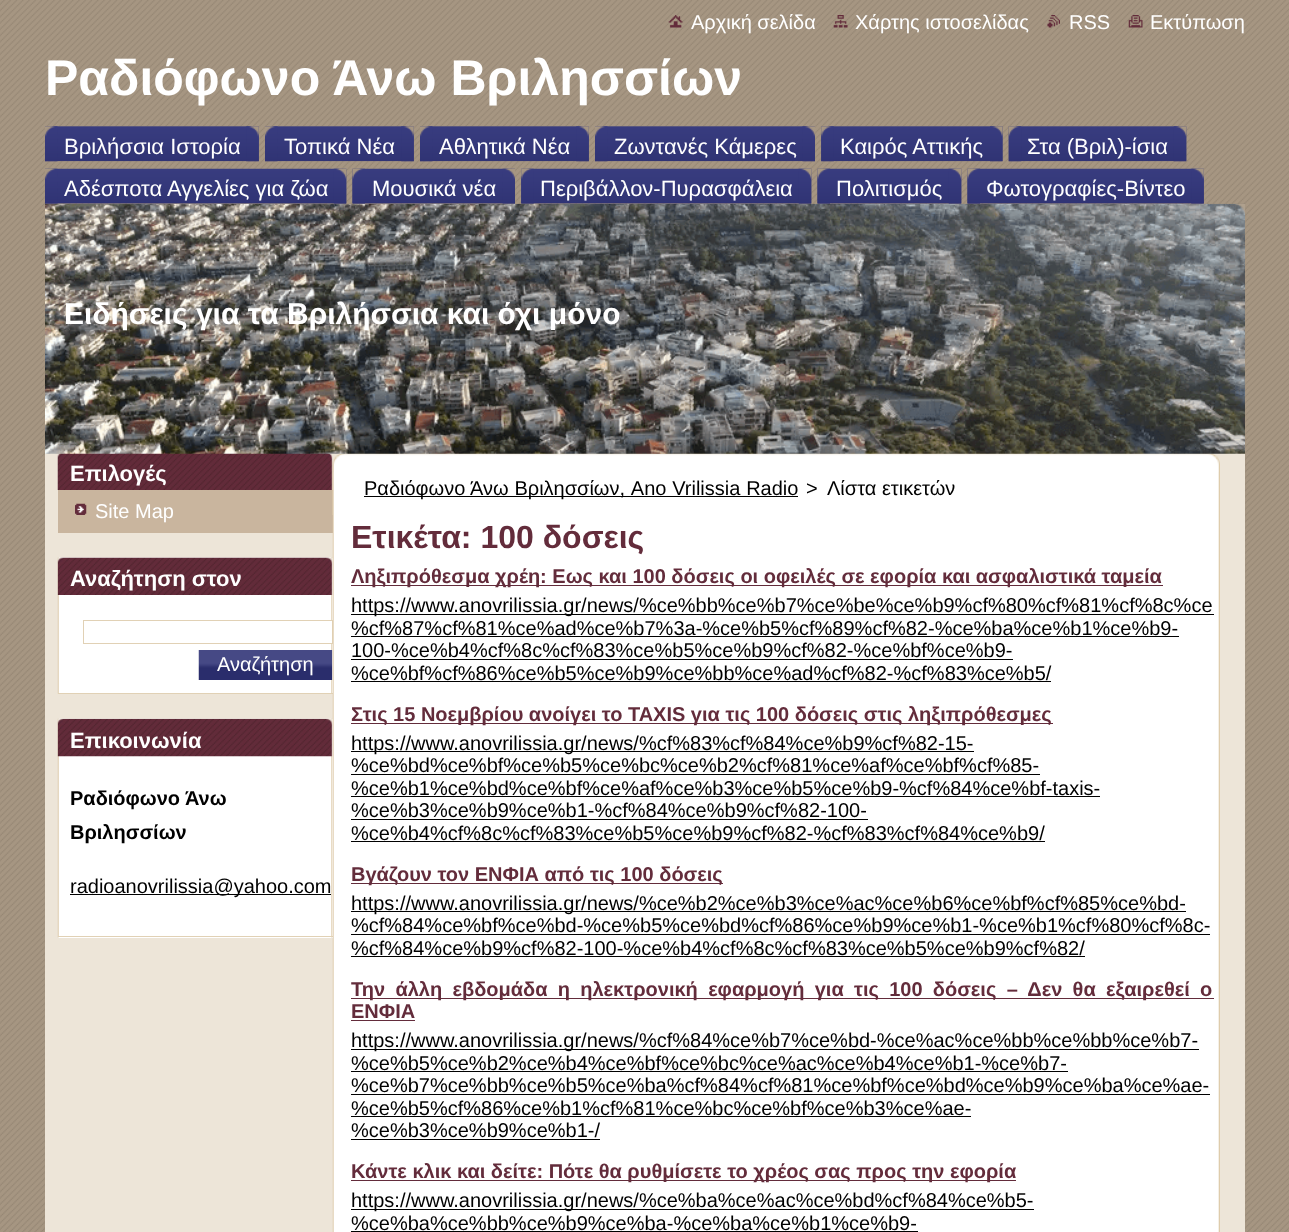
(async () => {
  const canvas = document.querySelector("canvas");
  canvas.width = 1289;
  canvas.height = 1232;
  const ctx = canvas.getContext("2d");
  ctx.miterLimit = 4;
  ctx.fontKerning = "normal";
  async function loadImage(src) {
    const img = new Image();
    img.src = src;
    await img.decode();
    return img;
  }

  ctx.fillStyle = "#ffffff";
  ctx.fillRect(0, 0, 1289, 1232);
  ctx.drawImage(await loadImage("img/1.png"), 0, 0, 1289, 1232);
  ctx.drawImage(await loadImage("img/2.png"), 668, 15, 15, 13);
  ctx.drawImage(await loadImage("img/3.png"), 833, 15, 15, 13);
  ctx.drawImage(await loadImage("img/4.png"), 1047, 15, 13, 13);
  ctx.drawImage(await loadImage("img/5.png"), 1128, 15, 15, 13);
  ctx.drawImage(await loadImage("img/6.png"), 45, 126, 214, 36);
  ctx.drawImage(await loadImage("img/7.png"), 45, 126, 13, 36);
  ctx.drawImage(await loadImage("img/8.png"), 246, 126, 13, 36);
  ctx.drawImage(await loadImage("img/9.png"), 265, 126, 149, 36);
  ctx.drawImage(await loadImage("img/10.png"), 265, 126, 13, 36);
  ctx.drawImage(await loadImage("img/11.png"), 401, 126, 13, 36);
  ctx.drawImage(await loadImage("img/12.png"), 420, 126, 169, 36);
  ctx.drawImage(await loadImage("img/13.png"), 420, 126, 13, 36);
  ctx.drawImage(await loadImage("img/11.png"), 576, 126, 13, 36);
  ctx.drawImage(await loadImage("img/14.png"), 595, 126, 220, 36);
  ctx.drawImage(await loadImage("img/7.png"), 595, 126, 13, 36);
  ctx.drawImage(await loadImage("img/15.png"), 802, 126, 13, 36);
  ctx.drawImage(await loadImage("img/16.png"), 821, 126, 182, 36);
  ctx.drawImage(await loadImage("img/17.png"), 821, 126, 13, 36);
  ctx.drawImage(await loadImage("img/18.png"), 990, 126, 13, 36);
  ctx.drawImage(await loadImage("img/19.png"), 1008, 126, 179, 36);
  ctx.drawImage(await loadImage("img/20.png"), 1008, 126, 14, 36);
  ctx.drawImage(await loadImage("img/21.png"), 1173, 126, 14, 36);
  ctx.drawImage(await loadImage("img/22.png"), 45, 168, 302, 36);
  ctx.drawImage(await loadImage("img/23.png"), 45, 168, 13, 36);
  ctx.drawImage(await loadImage("img/24.png"), 333, 168, 14, 36);
  ctx.drawImage(await loadImage("img/25.png"), 352, 168, 163, 36);
  ctx.drawImage(await loadImage("img/26.png"), 352, 168, 13, 36);
  ctx.drawImage(await loadImage("img/27.png"), 502, 168, 13, 36);
  ctx.drawImage(await loadImage("img/28.png"), 521, 168, 291, 36);
  ctx.drawImage(await loadImage("img/29.png"), 521, 168, 13, 36);
  ctx.drawImage(await loadImage("img/30.png"), 798, 168, 14, 36);
  ctx.drawImage(await loadImage("img/31.png"), 817, 168, 145, 36);
  ctx.drawImage(await loadImage("img/32.png"), 817, 168, 13, 36);
  ctx.drawImage(await loadImage("img/33.png"), 948, 168, 14, 36);
  ctx.drawImage(await loadImage("img/34.png"), 967, 168, 237, 36);
  ctx.drawImage(await loadImage("img/32.png"), 967, 168, 13, 36);
  ctx.drawImage(await loadImage("img/35.png"), 1191, 168, 13, 36);
  ctx.fillStyle = "#ede5d8";
  ctx.fillRect(45, 453, 1200, 779);
  ctx.drawImage(await loadImage("img/38.png"), 57, 453, 276, 37);
  ctx.fillStyle = "#c9b59e";
  ctx.fillRect(58, 490, 275, 43);
  ctx.drawImage(await loadImage("img/45.png"), 332, 453, 888, 62);
  ctx.drawImage(await loadImage("img/36.png"), 45, 203, 1200, 251);
  ctx.drawImage(await loadImage("img/37.png"), 1235, 204, 10, 10);
  ctx.drawImage(await loadImage("img/39.png"), 75, 503, 12, 12);
  ctx.fillStyle = "#ffffff";
  ctx.fillRect(332, 558, 1, 135);
  ctx.drawImage(await loadImage("img/40.png"), 57, 557, 276, 137);
  ctx.fillStyle = "#e1d1b5";
  ctx.fillRect(58, 693, 275, 1);
  ctx.drawImage(await loadImage("img/41.png"), 57, 557, 276, 38);
  ctx.fillStyle = "#ffffff";
  ctx.fillRect(331, 621, 1, 22);
  ctx.strokeStyle = "#e1d1b5";
  ctx.strokeRect(83.5, 620.5, 249, 23);
  ctx.drawImage(await loadImage("img/42.png"), 198, 650, 135, 30);
  ctx.fillRect(58, 719, 275, 219);
  ctx.drawImage(await loadImage("img/43.png"), 57, 718, 276, 220);
  ctx.fillStyle = "#e1d1b5";
  ctx.fillRect(58, 936, 275, 1);
  ctx.drawImage(await loadImage("img/44.png"), 57, 718, 276, 39);
  ctx.fillStyle = "#000000";
  ctx.fillRect(70, 894, 261, 1);
  ctx.drawImage(await loadImage("img/46.png"), 332, 472, 888, 760);
  for (const [x, y, w, h, color] of [
    [364, 496, 434, 1, "#000000"],
    [351, 585, 812, 1, "#632c3b"],
    [351, 614, 863, 1, "#000000"],
    [351, 636, 828, 1, "#000000"],
    [351, 659, 662, 1, "#000000"],
    [351, 681, 700, 1, "#000000"],
    [351, 723, 702, 1, "#632c3b"],
    [351, 751, 623, 1, "#000000"],
    [351, 774, 689, 1, "#000000"],
    [351, 796, 749, 1, "#000000"],
    [351, 819, 517, 1, "#000000"],
    [351, 841, 694, 1, "#000000"],
    [351, 883, 372, 1, "#632c3b"],
    [351, 911, 835, 1, "#000000"],
    [351, 934, 859, 1, "#000000"],
    [351, 956, 734, 1, "#000000"],
    [351, 998, 863, 1, "#632c3b"],
    [351, 1020, 64, 1, "#632c3b"],
    [351, 1049, 848, 1, "#000000"],
    [351, 1071, 717, 1, "#000000"],
    [351, 1094, 859, 1, "#000000"],
    [351, 1116, 620, 1, "#000000"],
    [351, 1139, 249, 1, "#000000"],
    [351, 1180, 665, 1, "#632c3b"],
    [351, 1209, 683, 1, "#000000"],
    [351, 1231, 567, 1, "#000000"],
  ]) {
    ctx.fillStyle = color;
    ctx.fillRect(x, y, w, h);
  }
  ctx.font = "20px Liberation Sans";
  ctx.fillStyle = "#ffffff";
  for (const [text, x, y] of [
    ["Αρχική σελίδα", 691, 29],
    ["Χάρτης ιστοσελίδας", 855, 29],
    ["RSS", 1069, 29],
    ["Εκτύπωση", 1150, 29],
  ]) {
    ctx.fillText(text, x, y);
  }
  ctx.font = "bold 50px Liberation Sans";
  ctx.fillText("Ραδιόφωνο Άνω Βριλησσίων", 45, 95);
  ctx.font = "22px Liberation Sans";
  for (const [text, x, y] of [
    ["Βριλήσσια Ιστορία", 64, 154],
    ["Τοπικά Νέα", 284, 154],
    ["Αθλητικά Νέα", 439, 154],
    ["Ζωντανές Κάμερες", 614, 154],
    ["Καιρός Αττικής", 840, 154],
    ["Στα (Βριλ)-ίσια", 1027, 154],
    ["Αδέσποτα Αγγελίες για ζώα", 64, 196],
    ["Μουσικά νέα", 372, 196],
    ["Περιβάλλον-Πυρασφάλεια", 540, 196],
    ["Πολιτισμός", 836, 196],
    ["Φωτογραφίες-Βίντεο", 986, 196],
  ]) {
    ctx.fillText(text, x, y);
  }
  ctx.font = "bold 30px Liberation Sans";
  ctx.fillText("Ειδήσεις για τα Βριλήσσια και όχι μόνο", 64, 324);
  ctx.font = "bold 22px Liberation Sans";
  ctx.fillText("Επιλογές", 70, 481);
  ctx.font = "20px Liberation Sans";
  ctx.fillText("Site Map", 95, 518);
  ctx.font = "bold 22px Liberation Sans";
  ctx.fillText("Αναζήτηση στον", 70, 586);
  ctx.font = "20px Liberation Sans";
  ctx.fillText("Αναζήτηση", 217, 671);
  ctx.font = "bold 22px Liberation Sans";
  ctx.fillText("Επικοινωνία", 70, 748);
  ctx.font = "bold 20px Liberation Sans";
  ctx.fillStyle = "#000000";
  ctx.fillText("Ραδιόφωνο Άνω", 70, 805);
  ctx.fillText("Βριλησσίων", 70, 839);
  ctx.font = "20px Liberation Sans";
  ctx.fillText("radioanovrilissia@yahoo.com", 70, 893);
  ctx.wordSpacing = "0.25px";
  ctx.fillText("Ραδιόφωνο Άνω Βριλησσίων, Ano Vrilissia Radio", 364, 495);
  ctx.wordSpacing = "0px";
  ctx.fillText(">", 806, 495);
  ctx.fillText("Λίστα ετικετών", 827, 495);
  ctx.font = "bold 32px Liberation Sans";
  ctx.fillStyle = "#632c3b";
  ctx.fillText("Ετικέτα: 100 δόσεις", 351, 548);
  ctx.font = "bold 20px Liberation Sans";
  ctx.fillText("Ληξιπρόθεσμα χρέη: Εως και 100 δόσεις οι οφειλές σε εφορία και ασφαλιστικά ταμεία", 351, 583);
  ctx.font = "20px Liberation Sans";
  ctx.fillStyle = "#000000";
  for (const [text, x, y] of [
    ["https://www.anovrilissia.gr/news/%ce%bb%ce%b7%ce%be%ce%b9%cf%80%cf%81%cf%8c%ce", 351, 612],
    ["%cf%87%cf%81%ce%ad%ce%b7%3a-%ce%b5%cf%89%cf%82-%ce%ba%ce%b1%ce%b9-", 351, 635],
    ["100-%ce%b4%cf%8c%cf%83%ce%b5%ce%b9%cf%82-%ce%bf%ce%b9-", 351, 657],
    ["%ce%bf%cf%86%ce%b5%ce%b9%ce%bb%ce%ad%cf%82-%cf%83%ce%b5/", 351, 680],
  ]) {
    ctx.fillText(text, x, y);
  }
  ctx.font = "bold 20px Liberation Sans";
  ctx.fillStyle = "#632c3b";
  ctx.fillText("Στις 15 Νοεμβρίου ανοίγει το TAXIS για τις 100 δόσεις στις ληξιπρόθεσμες", 351, 721);
  ctx.font = "20px Liberation Sans";
  ctx.fillStyle = "#000000";
  for (const [text, x, y] of [
    ["https://www.anovrilissia.gr/news/%cf%83%cf%84%ce%b9%cf%82-15-", 351, 750],
    ["%ce%bd%ce%bf%ce%b5%ce%bc%ce%b2%cf%81%ce%af%ce%bf%cf%85-", 351, 772],
    ["%ce%b1%ce%bd%ce%bf%ce%af%ce%b3%ce%b5%ce%b9-%cf%84%ce%bf-taxis-", 351, 795],
    ["%ce%b3%ce%b9%ce%b1-%cf%84%ce%b9%cf%82-100-", 351, 817],
    ["%ce%b4%cf%8c%cf%83%ce%b5%ce%b9%cf%82-%cf%83%cf%84%ce%b9/", 351, 840],
  ]) {
    ctx.fillText(text, x, y);
  }
  ctx.font = "bold 20px Liberation Sans";
  ctx.fillStyle = "#632c3b";
  ctx.fillText("Βγάζουν τον ΕΝΦΙΑ από τις 100 δόσεις", 351, 881);
  ctx.font = "20px Liberation Sans";
  ctx.fillStyle = "#000000";
  for (const [text, x, y] of [
    ["https://www.anovrilissia.gr/news/%ce%b2%ce%b3%ce%ac%ce%b6%ce%bf%cf%85%ce%bd-", 351, 910],
    ["%cf%84%ce%bf%ce%bd-%ce%b5%ce%bd%cf%86%ce%b9%ce%b1-%ce%b1%cf%80%cf%8c-", 351, 932],
    ["%cf%84%ce%b9%cf%82-100-%ce%b4%cf%8c%cf%83%ce%b5%ce%b9%cf%82/", 351, 955],
  ]) {
    ctx.fillText(text, x, y);
  }
  ctx.wordSpacing = "4.75px";
  ctx.font = "bold 20px Liberation Sans";
  ctx.fillStyle = "#632c3b";
  ctx.fillText("Την άλλη εβδομάδα η ηλεκτρονική εφαρμογή για τις 100 δόσεις – Δεν θα εξαιρεθεί ο", 351, 996);
  ctx.wordSpacing = "0px";
  ctx.fillText("ΕΝΦΙΑ", 351, 1018);
  ctx.font = "20px Liberation Sans";
  ctx.fillStyle = "#000000";
  for (const [text, x, y] of [
    ["https://www.anovrilissia.gr/news/%cf%84%ce%b7%ce%bd-%ce%ac%ce%bb%ce%bb%ce%b7-", 351, 1047],
    ["%ce%b5%ce%b2%ce%b4%ce%bf%ce%bc%ce%ac%ce%b4%ce%b1-%ce%b7-", 351, 1070],
    ["%ce%b7%ce%bb%ce%b5%ce%ba%cf%84%cf%81%ce%bf%ce%bd%ce%b9%ce%ba%ce%ae-", 351, 1092],
    ["%ce%b5%cf%86%ce%b1%cf%81%ce%bc%ce%bf%ce%b3%ce%ae-", 351, 1115],
    ["%ce%b3%ce%b9%ce%b1-/", 351, 1137],
  ]) {
    ctx.fillText(text, x, y);
  }
  ctx.font = "bold 20px Liberation Sans";
  ctx.fillStyle = "#632c3b";
  ctx.fillText("Κάντε κλικ και δείτε: Πότε θα ρυθμίσετε το χρέος σας προς την εφορία", 351, 1178);
  ctx.font = "20px Liberation Sans";
  ctx.fillStyle = "#000000";
  ctx.fillText("https://www.anovrilissia.gr/news/%ce%ba%ce%ac%ce%bd%cf%84%ce%b5-", 351, 1207);
  ctx.fillText("%ce%ba%ce%bb%ce%b9%ce%ba-%ce%ba%ce%b1%ce%b9-", 351, 1230);
})();
